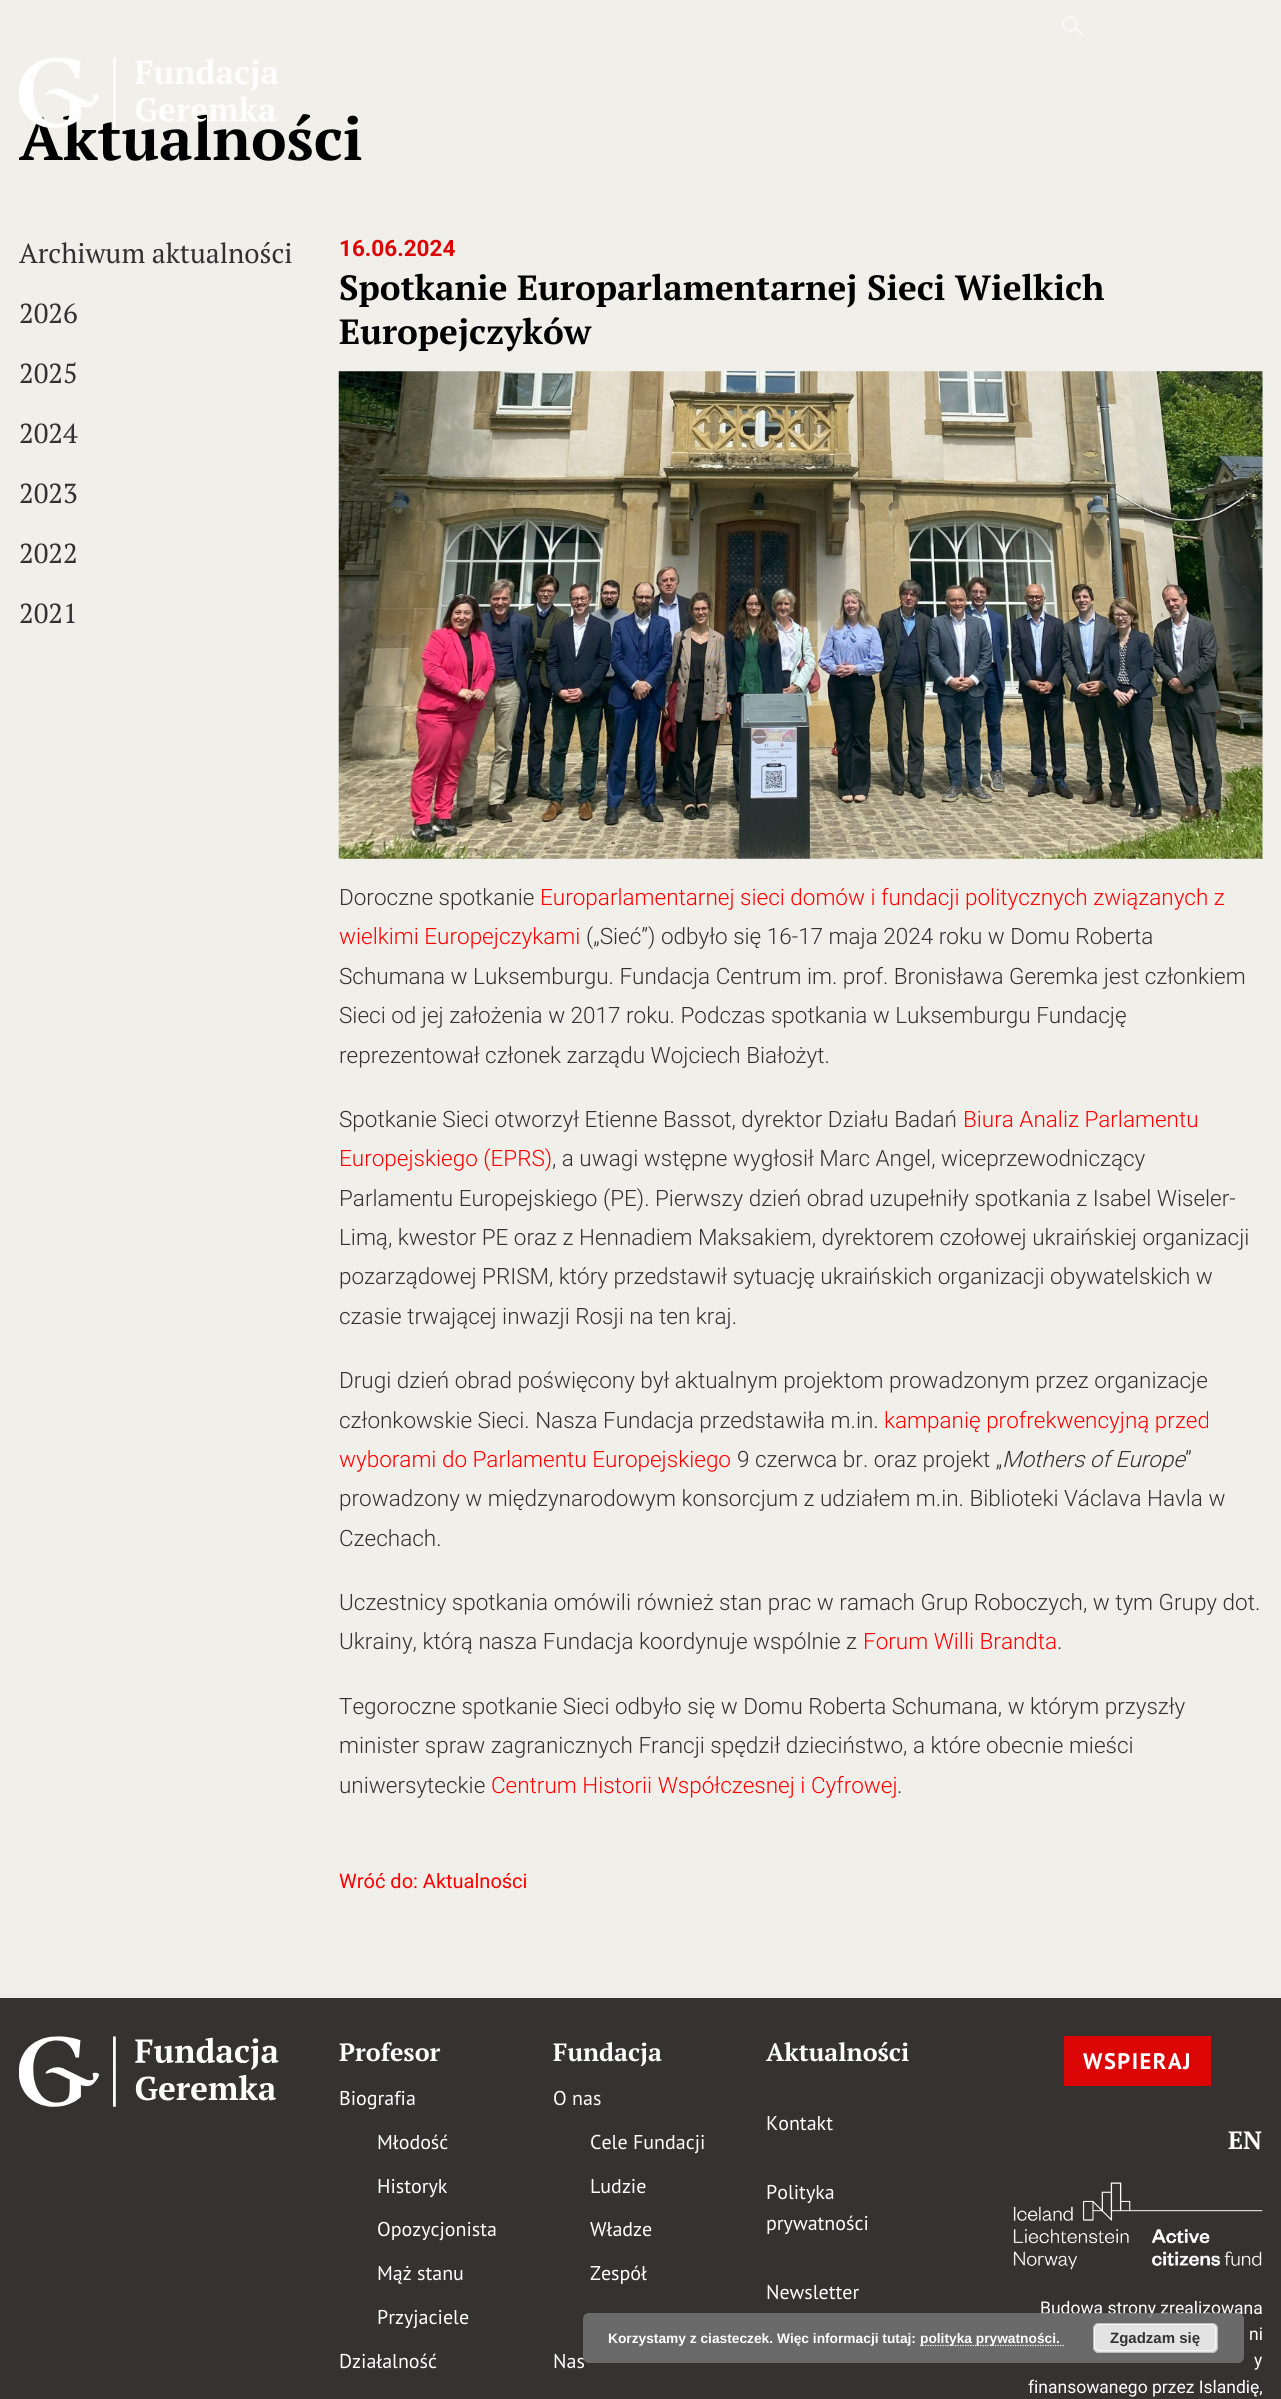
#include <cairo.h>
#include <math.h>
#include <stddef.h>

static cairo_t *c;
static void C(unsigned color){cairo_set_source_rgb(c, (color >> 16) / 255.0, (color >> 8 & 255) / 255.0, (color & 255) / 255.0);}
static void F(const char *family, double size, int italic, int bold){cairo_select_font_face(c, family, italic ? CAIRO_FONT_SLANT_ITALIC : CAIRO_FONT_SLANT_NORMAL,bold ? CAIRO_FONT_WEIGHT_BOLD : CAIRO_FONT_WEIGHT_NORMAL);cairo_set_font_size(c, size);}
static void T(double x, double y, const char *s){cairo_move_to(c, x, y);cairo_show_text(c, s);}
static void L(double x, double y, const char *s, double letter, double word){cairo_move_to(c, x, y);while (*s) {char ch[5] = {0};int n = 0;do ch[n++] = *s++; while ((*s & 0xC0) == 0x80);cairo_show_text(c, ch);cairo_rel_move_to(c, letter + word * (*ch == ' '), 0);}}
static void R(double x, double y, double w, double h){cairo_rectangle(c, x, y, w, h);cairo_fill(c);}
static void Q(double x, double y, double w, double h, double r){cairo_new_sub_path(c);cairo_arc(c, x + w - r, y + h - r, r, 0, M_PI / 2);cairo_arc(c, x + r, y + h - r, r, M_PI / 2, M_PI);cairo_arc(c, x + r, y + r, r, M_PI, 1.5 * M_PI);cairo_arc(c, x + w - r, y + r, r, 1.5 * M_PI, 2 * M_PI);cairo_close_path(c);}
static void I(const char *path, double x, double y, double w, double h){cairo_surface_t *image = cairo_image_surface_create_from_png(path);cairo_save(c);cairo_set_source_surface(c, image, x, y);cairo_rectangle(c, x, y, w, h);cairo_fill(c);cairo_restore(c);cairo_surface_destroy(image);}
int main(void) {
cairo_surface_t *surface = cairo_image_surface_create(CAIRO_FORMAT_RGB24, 1281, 2399);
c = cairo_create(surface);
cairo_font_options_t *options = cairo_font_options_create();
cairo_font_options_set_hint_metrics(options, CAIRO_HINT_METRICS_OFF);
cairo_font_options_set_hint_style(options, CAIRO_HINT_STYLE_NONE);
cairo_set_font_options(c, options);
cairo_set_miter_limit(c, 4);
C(0xf1efea);
cairo_paint(c);
I("1.png",1062,16,21,18);
F("PT Serif",60,0,1);
C(0x000000);
T(19,160,"Aktualności");
I("2.png",19,57,260,71);
F("PT Serif",27.5,0,0);
C(0x333233);
T(19,263,"Archiwum aktualności");
T(19,323,"2026");
T(19,383,"2025");
T(19,443,"2024");
T(19,503,"2023");
T(19,563,"2022");
T(19,623,"2021");
F("Roboto",22.5,0,1);
C(0xdd0606);
T(339,256,"16.06.2024");
F("PT Serif",35,0,1);
C(0x000000);
T(339,300,"Spotkanie Europarlamentarnej Sieci Wielkich");
T(339,344,"Europejczyków");
I("3.png",338,371,925,488);
F("Roboto Light",22.5,0,0);
C(0x333233);
T(339,905,"Doroczne spotkanie");
C(0xff0000);
T(540,905,"Europarlamentarnej sieci domów i fundacji politycznych związanych z");
T(339,944,"wielkimi Europejczykami");
C(0x333233);
T(586,944,"(„Sieć”) odbyło się 16-17 maja 2024 roku w Domu Roberta");
T(339,984,"Schumana w Luksemburgu. Fundacja Centrum im. prof. Bronisława Geremka jest członkiem");
T(339,1023,"Sieci od jej założenia w 2017 roku. Podczas spotkania w Luksemburgu Fundację");
T(339,1063,"reprezentował członek zarządu Wojciech Białożyt.");
T(339,1127,"Spotkanie Sieci otworzył Etienne Bassot, dyrektor Działu Badań");
C(0xff0000);
T(963,1127,"Biura Analiz Parlamentu");
T(339,1166,"Europejskiego (EPRS)");
C(0x333233);
T(552,1166,", a uwagi wstępne wygłosił Marc Angel, wiceprzewodniczący");
T(339,1206,"Parlamentu Europejskiego (PE). Pierwszy dzień obrad uzupełniły spotkania z Isabel Wiseler-");
T(339,1245,"Limą, kwestor PE oraz z Hennadiem Maksakiem, dyrektorem czołowej ukraińskiej organizacji");
T(339,1284,"pozarządowej PRISM, który przedstawił sytuację ukraińskich organizacji obywatelskich w");
T(339,1324,"czasie trwającej inwazji Rosji na ten kraj.");
T(339,1388,"Drugi dzień obrad poświęcony był aktualnym projektom prowadzonym przez organizacje");
T(339,1428,"członkowskie Sieci. Nasza Fundacja przedstawiła m.in.");
C(0xff0000);
T(884,1428,"kampanię profrekwencyjną przed");
T(339,1467,"wyborami do Parlamentu Europejskiego");
C(0x333233);
T(737,1467,"9 czerwca br. oraz projekt „");
F("Roboto Light",22.5,1,0);
T(1002,1467,"Mothers of Europe");
F("Roboto Light",22.5,0,0);
T(1185,1467,"”");
T(339,1506,"prowadzony w międzynarodowym konsorcjum z udziałem m.in. Biblioteki Václava Havla w");
T(339,1546,"Czechach.");
T(339,1610,"Uczestnicy spotkania omówili również stan prac w ramach Grup Roboczych, w tym Grupy dot.");
T(339,1649,"Ukrainy, którą nasza Fundacja koordynuje wspólnie z");
C(0xff0000);
T(863,1649,"Forum Willi Brandta");
C(0x333233);
T(1057,1649,".");
T(339,1714,"Tegoroczne spotkanie Sieci odbyło się w Domu Roberta Schumana, w którym przyszły");
T(339,1753,"minister spraw zagranicznych Francji spędził dzieciństwo, a które obecnie mieści");
T(339,1793,"uniwersyteckie");
C(0xff0000);
T(491,1793,"Centrum Historii Współczesnej i Cyfrowej");
C(0x333233);
T(897,1793,".");
F("Roboto",20,0,0);
C(0xff0000);
T(339,1888,"Wróć do: Aktualności");
C(0x363232);
R(0,1998,1281,401);
I("4.png",19,2036,260,71);
F("PT Serif",25,0,1);
C(0xffffff);
T(339,2061,"Profesor");
F("PT Sans",20,0,0);
T(339,2105,"Biografia");
T(377,2149,"Młodość");
T(377,2193,"Historyk");
T(377,2236,"Opozycjonista");
T(377,2280,"Mąż stanu");
T(377,2324,"Przyjaciele");
T(339,2368,"Działalność");
F("PT Serif",25,0,1);
T(553,2061,"Fundacja");
F("PT Sans",20,0,0);
T(553,2105,"O nas");
T(590,2149,"Cele Fundacji");
T(590,2193,"Ludzie");
T(590,2236,"Władze");
T(590,2280,"Zespół");
T(553,2368,"Nas");
F("PT Serif",25,0,1);
T(766,2061,"Aktualności");
F("PT Sans",20,0,0);
T(766,2130,"Kontakt");
T(766,2199,"Polityka");
T(766,2230,"prywatności");
T(766,2299,"Newsletter");
C(0xdd0606);
R(1064,2036,147,50);
F("PT Sans",22.5,0,1);
C(0xffffff);
L(1083,2069,"WSPIERAJ",1.5,0);
F("PT Serif",25,0,1);
T(1228,2149,"EN");
I("5.png",1013,2182,250,88);
F("Roboto",17.5,0,0);
T(1040,2314,"Budowa strony zrealizowana");
T(1249,2340,"ni");
T(1254,2366,"y");
T(1028,2393,"finansowanego przez Islandię,");
cairo_set_source_rgba(c,0.459,0.459,0.459,0.85);
Q(583,2313,661,50,6);
cairo_fill(c);
F("Liberation Sans",13.75,0,1);
C(0xffffff);
T(608,2343,"Korzystamy z ciasteczek. Więc informacji tutaj:");
cairo_new_path(c);
cairo_move_to(c,920,2345.5);
cairo_line_to(c,1064,2345.5);
cairo_set_line_width(c,1.2);
cairo_set_dash(c,(double[]){1.25,1.25},2,0);
cairo_stroke(c);
T(920,2343,"polityka prywatności.");
C(0xe3e3e3);
Q(1093,2323,125,30,6);
cairo_fill(c);
Q(1094.5,2324.5,121,26,4.5);
C(0xf6f6f6);
cairo_set_line_width(c,1);
cairo_set_dash(c,NULL,0,0);
cairo_stroke(c);
Q(1093.5,2323.5,124,29,5.5);
C(0xbbbbbb);
cairo_stroke(c);
F("Liberation Sans",15,0,1);
C(0x333233);
T(1110,2343,"Zgadzam się");
cairo_surface_write_to_png(surface, "o.png");
cairo_font_options_destroy(options);
cairo_destroy(c);
cairo_surface_destroy(surface);
return 0;
}
